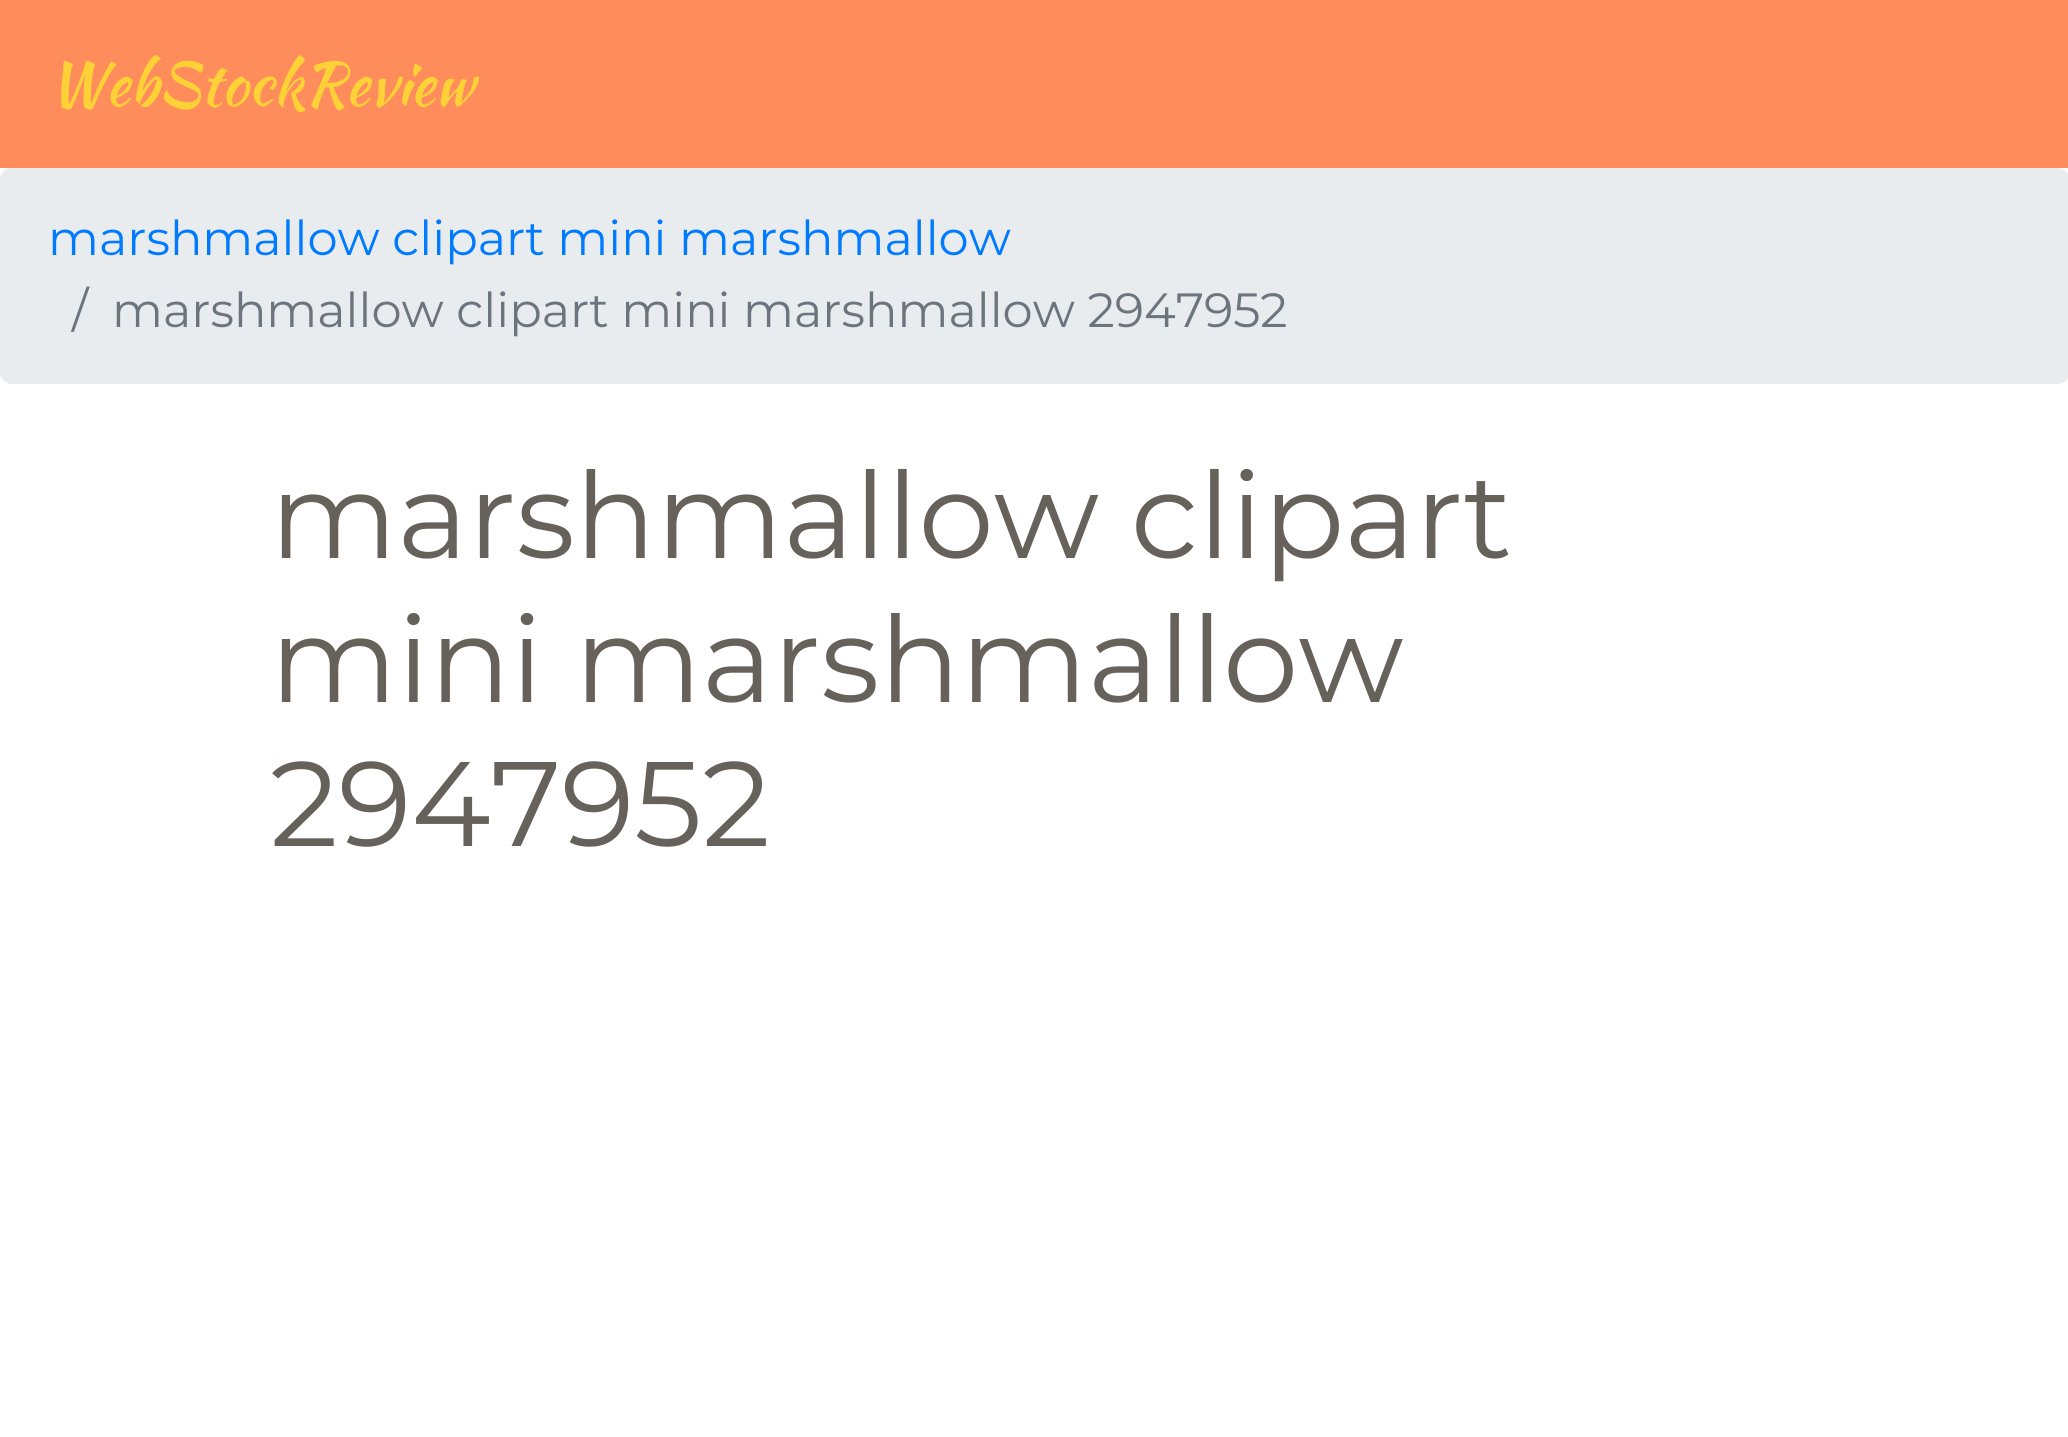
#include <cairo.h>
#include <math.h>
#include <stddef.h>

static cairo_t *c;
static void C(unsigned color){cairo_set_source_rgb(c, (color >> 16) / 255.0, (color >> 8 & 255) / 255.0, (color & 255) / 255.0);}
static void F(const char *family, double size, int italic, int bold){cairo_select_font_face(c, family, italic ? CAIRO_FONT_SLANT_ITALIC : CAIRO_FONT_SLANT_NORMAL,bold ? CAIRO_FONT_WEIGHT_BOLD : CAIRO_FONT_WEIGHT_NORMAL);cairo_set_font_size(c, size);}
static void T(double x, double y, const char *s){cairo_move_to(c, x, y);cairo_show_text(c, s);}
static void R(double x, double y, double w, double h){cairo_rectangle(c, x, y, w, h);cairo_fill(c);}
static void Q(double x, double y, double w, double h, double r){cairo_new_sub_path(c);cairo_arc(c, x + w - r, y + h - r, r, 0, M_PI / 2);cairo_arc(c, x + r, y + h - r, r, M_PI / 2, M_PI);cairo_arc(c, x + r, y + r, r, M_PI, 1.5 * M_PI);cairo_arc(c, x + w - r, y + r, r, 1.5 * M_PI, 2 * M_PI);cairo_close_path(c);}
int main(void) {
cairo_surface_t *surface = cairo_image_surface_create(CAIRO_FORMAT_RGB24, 2068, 1437);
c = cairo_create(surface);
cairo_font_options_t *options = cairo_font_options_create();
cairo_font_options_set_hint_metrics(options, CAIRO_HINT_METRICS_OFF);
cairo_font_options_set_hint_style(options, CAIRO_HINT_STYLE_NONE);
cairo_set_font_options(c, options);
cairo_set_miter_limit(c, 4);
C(0xffffff);
cairo_paint(c);
C(0xff8d5c);
R(0,0,2068,168);
F("Kaushan Script",60,0,0);
C(0xfed136);
T(48,105,"WebStockReview");
C(0xe9ecef);
Q(0,168,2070,216,12);
cairo_fill(c);
F("Montserrat Thin",48,0,0);
C(0x007bff);
T(48,255,"marshmallow clipart mini marshmallow");
C(0x6c757d);
T(72,327,"/");
T(112,327,"marshmallow clipart mini marshmallow 2947952");
F("Montserrat Thin",120,0,0);
C(0x67615b);
T(270,558,"marshmallow clipart");
T(270,702,"mini marshmallow");
T(270,846,"2947952");
cairo_surface_write_to_png(surface, "o.png");
cairo_font_options_destroy(options);
cairo_destroy(c);
cairo_surface_destroy(surface);
return 0;
}
